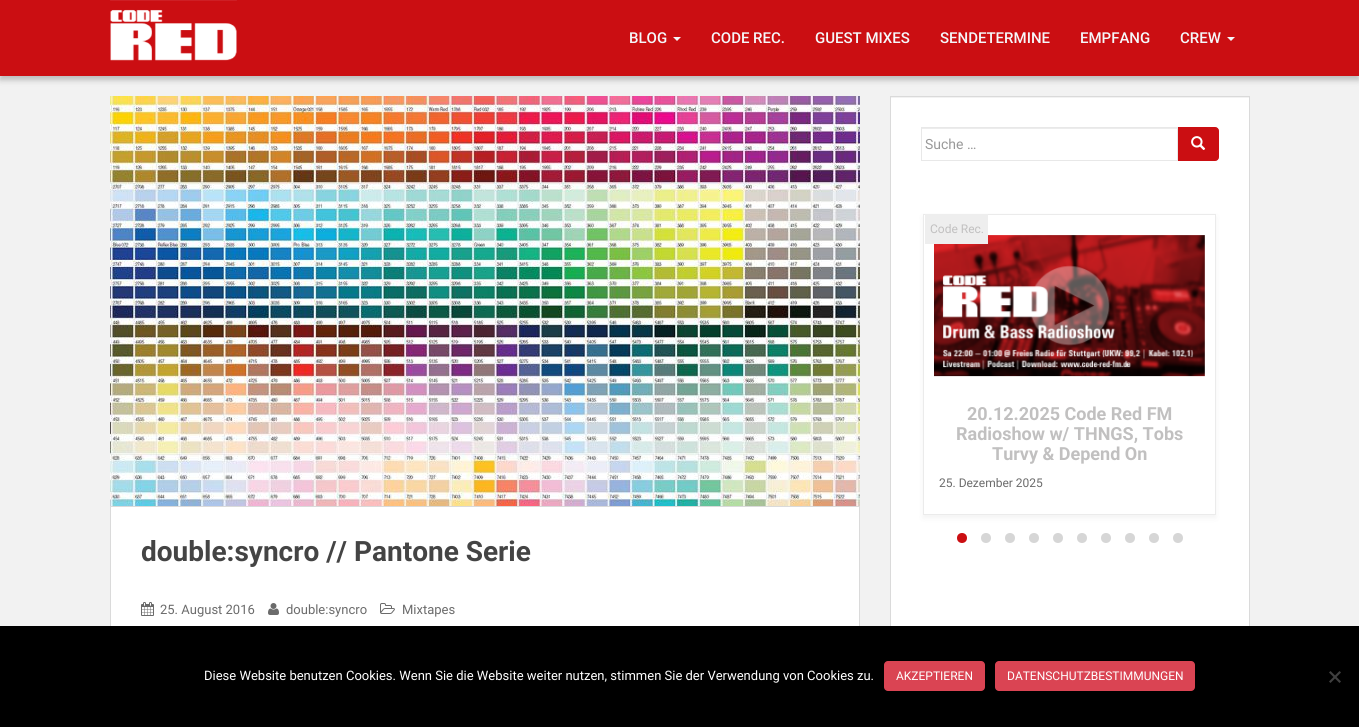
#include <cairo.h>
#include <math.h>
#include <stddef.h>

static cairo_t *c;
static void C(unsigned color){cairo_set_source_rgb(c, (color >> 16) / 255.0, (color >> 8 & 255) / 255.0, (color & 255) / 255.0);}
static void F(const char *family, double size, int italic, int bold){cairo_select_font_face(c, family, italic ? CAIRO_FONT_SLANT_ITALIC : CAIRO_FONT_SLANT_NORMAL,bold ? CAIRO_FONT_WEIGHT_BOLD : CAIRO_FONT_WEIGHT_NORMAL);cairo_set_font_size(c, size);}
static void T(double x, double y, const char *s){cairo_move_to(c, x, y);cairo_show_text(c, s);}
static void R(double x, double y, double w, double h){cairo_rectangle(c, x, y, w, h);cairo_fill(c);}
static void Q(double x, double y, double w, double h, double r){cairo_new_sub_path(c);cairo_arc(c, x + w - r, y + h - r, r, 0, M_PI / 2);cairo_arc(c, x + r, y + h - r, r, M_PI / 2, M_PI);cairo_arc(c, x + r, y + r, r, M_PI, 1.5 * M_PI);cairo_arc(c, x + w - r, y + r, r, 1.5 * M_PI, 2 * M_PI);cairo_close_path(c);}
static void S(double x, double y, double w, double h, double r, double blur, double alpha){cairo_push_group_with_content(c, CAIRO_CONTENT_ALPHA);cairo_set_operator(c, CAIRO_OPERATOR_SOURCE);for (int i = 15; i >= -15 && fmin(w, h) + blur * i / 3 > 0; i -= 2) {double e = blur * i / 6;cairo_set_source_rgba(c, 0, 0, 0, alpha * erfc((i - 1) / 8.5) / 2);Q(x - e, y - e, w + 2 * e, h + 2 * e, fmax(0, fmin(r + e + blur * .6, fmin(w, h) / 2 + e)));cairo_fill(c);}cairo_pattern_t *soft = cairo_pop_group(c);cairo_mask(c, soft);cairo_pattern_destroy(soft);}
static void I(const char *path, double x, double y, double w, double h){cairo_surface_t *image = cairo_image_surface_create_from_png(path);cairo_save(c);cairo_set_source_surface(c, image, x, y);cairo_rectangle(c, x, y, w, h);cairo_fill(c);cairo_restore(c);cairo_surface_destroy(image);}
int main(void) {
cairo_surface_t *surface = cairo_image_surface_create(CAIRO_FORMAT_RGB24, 1359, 727);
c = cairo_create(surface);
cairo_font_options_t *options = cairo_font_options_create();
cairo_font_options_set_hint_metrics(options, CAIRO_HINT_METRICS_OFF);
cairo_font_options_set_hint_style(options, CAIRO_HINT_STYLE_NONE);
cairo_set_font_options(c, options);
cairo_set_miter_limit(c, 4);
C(0xf2f2f2);
cairo_paint(c);
C(0x000000);
S(0,4,1359,76,0,3,.23);
C(0xcb0e12);
R(0,0,1359,76);
I("1.png",110,0,127,61);
F("Roboto Medium",15,0,0);
C(0xf5f7fa);
T(629,43,"BLOG");
cairo_new_path(c);
cairo_move_to(c,673,37);
cairo_line_to(c,681,37);
cairo_line_to(c,677,41);
cairo_close_path(c);
cairo_fill(c);
T(711,43,"CODE REC.");
T(815,43,"GUEST MIXES");
T(940,43,"SENDETERMINE");
T(1080,43,"EMPFANG");
T(1180,43,"CREW");
cairo_new_path(c);
cairo_move_to(c,1227,37);
cairo_line_to(c,1235,37);
cairo_line_to(c,1231,41);
cairo_close_path(c);
cairo_fill(c);
C(0xffffff);
R(891,98,358,528);
cairo_rectangle(c,890.5,96.5,359,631);
C(0xdadada);
cairo_set_line_width(c,1);
cairo_stroke(c);
C(0xececec);
R(922,128,255,1);
cairo_rectangle(c,921.5,127.5,256,33);
C(0xe8e8e8);
cairo_stroke(c);
F("Roboto",14,0,0);
C(0x999999);
T(925,149,"Suche …");
C(0xcb0e12);
cairo_new_path(c);
cairo_move_to(c,1178.5,127.5);
cairo_line_to(c,1215,127.5);
cairo_curve_to(c,1217,127.5,1218.5,129,1218.5,131);
cairo_line_to(c,1218.5,157);
cairo_curve_to(c,1218.5,159,1217,160.5,1215,160.5);
cairo_line_to(c,1178.5,160.5);
cairo_close_path(c);
cairo_fill_preserve(c);
cairo_stroke(c);
I("2.png",1191,136,15,14);
cairo_save(c);
cairo_set_fill_rule(c,CAIRO_FILL_RULE_EVEN_ODD);
cairo_new_path(c);
cairo_move_to(c,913,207);
cairo_line_to(c,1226,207);
cairo_line_to(c,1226,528);
cairo_line_to(c,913,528);
cairo_close_path(c);
cairo_move_to(c,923,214);
cairo_line_to(c,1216,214);
cairo_line_to(c,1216,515);
cairo_line_to(c,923,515);
cairo_close_path(c);
cairo_clip(c);
C(0x000000);
S(923,217,293,301,0,3,.05);
cairo_restore(c);
cairo_rectangle(c,923.5,214.5,292,300);
C(0xebebeb);
cairo_stroke(c);
I("3.png",934,235,271,142);
C(0xeeeeee);
R(925,214,63,30);
F("Roboto",12,0,0);
C(0xc1c0c0);
T(930,233,"Code Rec.");
F("Roboto",18,0,1);
T(967,420,"20.12.2025 Code Red FM");
T(956,440,"Radioshow w/ THNGS, Tobs");
T(992,460,"Turvy & Depend On");
F("Roboto",12,0,0);
C(0x6b6b6b);
T(939,487,"25. Dezember 2025");
C(0xcb0e12);
cairo_new_path(c);
cairo_arc(c,962,538,5,0,2 * M_PI);
cairo_fill(c);
C(0xd6d6d6);
cairo_arc(c,986,538,5,0,2 * M_PI);
cairo_fill(c);
cairo_arc(c,1010,538,5,0,2 * M_PI);
cairo_fill(c);
cairo_arc(c,1034,538,5,0,2 * M_PI);
cairo_fill(c);
cairo_arc(c,1058,538,5,0,2 * M_PI);
cairo_fill(c);
cairo_arc(c,1082,538,5,0,2 * M_PI);
cairo_fill(c);
cairo_arc(c,1106,538,5,0,2 * M_PI);
cairo_fill(c);
cairo_arc(c,1130,538,5,0,2 * M_PI);
cairo_fill(c);
cairo_arc(c,1154,538,5,0,2 * M_PI);
cairo_fill(c);
cairo_arc(c,1178,538,5,0,2 * M_PI);
cairo_fill(c);
I("4.png",110,96,750,410);
C(0xffffff);
R(111,507,748,119);
cairo_rectangle(c,110.5,506.5,749,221);
C(0xdadada);
cairo_stroke(c);
F("Roboto",28,0,1);
C(0x444444);
T(141,561,"double:syncro // Pantone Serie");
I("5.png",141,602,13,14);
F("Roboto",13,0,0);
C(0x6b6b6b);
T(160,614,"25. August 2016");
I("6.png",268,603,11,12);
T(286,614,"double:syncro");
I("7.png",380,603,15,11);
T(402,614,"Mixtapes");
C(0x000000);
R(0,626,1359,101);
C(0xffffff);
T(204,680,"Diese Website benutzen Cookies. Wenn Sie die Website weiter nutzen, stimmen Sie der Verwendung von Cookies zu.");
C(0xda4453);
Q(884,661,101,30,4);
cairo_fill(c);
F("Roboto",12,0,0);
C(0xffffff);
T(896,680,"AKZEPTIEREN");
C(0xda4453);
Q(995,661,200,30,4);
cairo_fill(c);
C(0xffffff);
T(1007,680,"DATENSCHUTZBESTIMMUNGEN");
C(0x404040);
cairo_new_path(c);
cairo_move_to(c,1339.5,671);
cairo_line_to(c,1341,672.5);
cairo_line_to(c,1330.5,683);
cairo_line_to(c,1329,681.5);
cairo_close_path(c);
cairo_fill(c);
cairo_new_path(c);
cairo_move_to(c,1329,672.5);
cairo_line_to(c,1330.5,671);
cairo_line_to(c,1341,681.5);
cairo_line_to(c,1339.5,683);
cairo_close_path(c);
cairo_fill(c);
cairo_surface_write_to_png(surface, "o.png");
cairo_font_options_destroy(options);
cairo_destroy(c);
cairo_surface_destroy(surface);
return 0;
}
